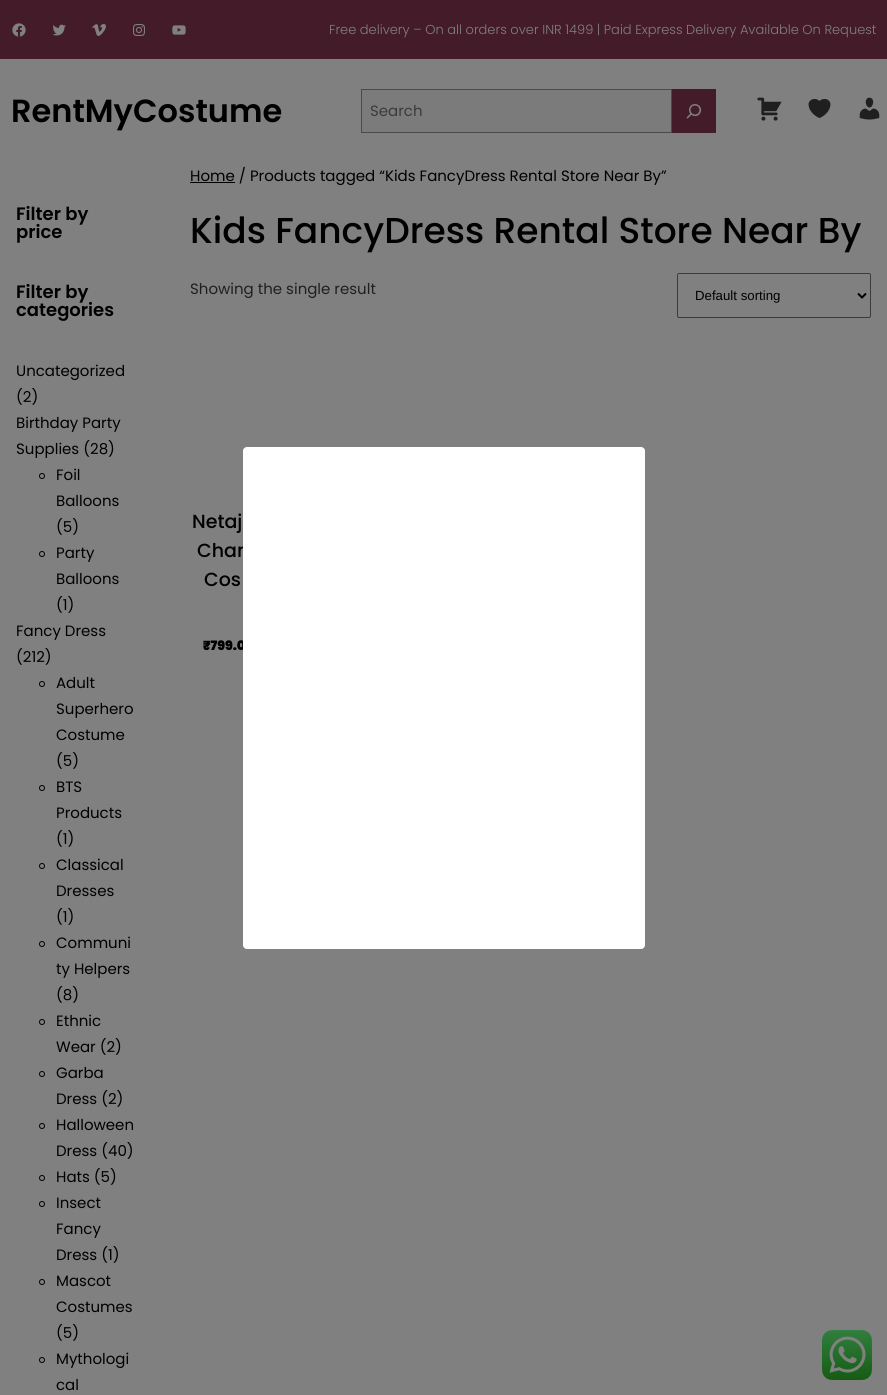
#include <cairo.h>
#include <math.h>
#include <stddef.h>

static cairo_t *c;
static void C(unsigned color){cairo_set_source_rgb(c, (color >> 16) / 255.0, (color >> 8 & 255) / 255.0, (color & 255) / 255.0);}
static void F(const char *family, double size, int italic, int bold){cairo_select_font_face(c, family, italic ? CAIRO_FONT_SLANT_ITALIC : CAIRO_FONT_SLANT_NORMAL,bold ? CAIRO_FONT_WEIGHT_BOLD : CAIRO_FONT_WEIGHT_NORMAL);cairo_set_font_size(c, size);}
static void T(double x, double y, const char *s){cairo_move_to(c, x, y);cairo_show_text(c, s);}
static void R(double x, double y, double w, double h){cairo_rectangle(c, x, y, w, h);cairo_fill(c);}
static void Q(double x, double y, double w, double h, double r){cairo_new_sub_path(c);cairo_arc(c, x + w - r, y + h - r, r, 0, M_PI / 2);cairo_arc(c, x + r, y + h - r, r, M_PI / 2, M_PI);cairo_arc(c, x + r, y + r, r, M_PI, 1.5 * M_PI);cairo_arc(c, x + w - r, y + r, r, 1.5 * M_PI, 2 * M_PI);cairo_close_path(c);}
static void I(const char *path, double x, double y, double w, double h){cairo_surface_t *image = cairo_image_surface_create_from_png(path);cairo_save(c);cairo_set_source_surface(c, image, x, y);cairo_rectangle(c, x, y, w, h);cairo_fill(c);cairo_restore(c);cairo_surface_destroy(image);}
int main(void) {
cairo_surface_t *surface = cairo_image_surface_create(CAIRO_FORMAT_RGB24, 887, 1395);
c = cairo_create(surface);
cairo_font_options_t *options = cairo_font_options_create();
cairo_font_options_set_hint_metrics(options, CAIRO_HINT_METRICS_OFF);
cairo_font_options_set_hint_style(options, CAIRO_HINT_STYLE_NONE);
cairo_set_font_options(c, options);
cairo_set_miter_limit(c, 4);
C(0x808080);
cairo_paint(c);
C(0x441b29);
R(0,0,887,59);
I("1.png",12,23,14,14);
I("2.png",52,24,14,12);
I("3.png",92,24,14,12);
I("4.png",133,24,12,12);
I("5.png",172,25,14,10);
F("Poppins Light",13,0,0);
C(0x808080);
T(329,34,"Free delivery – On all orders over INR 1499 | Paid Express Delivery Available On Request");
F("Poppins SemiBold",32,0,0);
C(0x000000);
T(11,122,"RentMyCostume");
C(0x7b7b7b);
cairo_rectangle(c,361.5,89.5,310,43);
cairo_fill_preserve(c);
C(0x4a4a4a);
cairo_set_line_width(c,1);
cairo_stroke(c);
F("Poppins",15,0,0);
C(0x3b3b3b);
T(370,116,"Search");
C(0x441b29);
R(672,89,44,44);
I("6.png",686,104,16,15);
I("7.png",757,97,25,24);
I("8.png",808,99,23,19);
I("9.png",859,97,21,23);
F("Poppins SemiBold",18,0,0);
C(0x000000);
T(16,220,"Filter by");
T(16,238,"price");
T(16,298,"Filter by");
T(16,316,"categories");
F("Poppins",15,0,0);
T(16,376,"Uncategorized");
T(16,402,"(2)");
T(16,428,"Birthday Party");
T(16,454,"Supplies (28)");
cairo_new_path(c);
cairo_arc(c,42,476,2.5,0,2 * M_PI);
cairo_stroke(c);
T(56,480,"Foil");
T(56,506,"Balloons");
T(56,532,"(5)");
cairo_new_path(c);
cairo_arc(c,42,554,2.5,0,2 * M_PI);
cairo_stroke(c);
T(56,558,"Party");
T(56,584,"Balloons");
T(56,610,"(1)");
T(16,636,"Fancy Dress");
T(16,662,"(212)");
cairo_new_path(c);
cairo_arc(c,42,684,2.5,0,2 * M_PI);
cairo_stroke(c);
T(56,688,"Adult");
T(56,714,"Superhero");
T(56,740,"Costume");
T(56,766,"(5)");
cairo_new_path(c);
cairo_arc(c,42,788,2.5,0,2 * M_PI);
cairo_stroke(c);
T(56,792,"BTS");
T(56,818,"Products");
T(56,844,"(1)");
cairo_new_path(c);
cairo_arc(c,42,866,2.5,0,2 * M_PI);
cairo_stroke(c);
T(56,870,"Classical");
T(56,896,"Dresses");
T(56,922,"(1)");
cairo_new_path(c);
cairo_arc(c,42,944,2.5,0,2 * M_PI);
cairo_stroke(c);
T(56,948,"Communi");
T(56,974,"ty Helpers");
T(56,1000,"(8)");
cairo_new_path(c);
cairo_arc(c,42,1022,2.5,0,2 * M_PI);
cairo_stroke(c);
T(56,1026,"Ethnic");
T(56,1052,"Wear (2)");
cairo_new_path(c);
cairo_arc(c,42,1074,2.5,0,2 * M_PI);
cairo_stroke(c);
T(56,1078,"Garba");
T(56,1104,"Dress (2)");
cairo_new_path(c);
cairo_arc(c,42,1126,2.5,0,2 * M_PI);
cairo_stroke(c);
T(56,1130,"Halloween");
T(56,1156,"Dress (40)");
cairo_new_path(c);
cairo_arc(c,42,1178,2.5,0,2 * M_PI);
cairo_stroke(c);
T(56,1182,"Hats (5)");
cairo_new_path(c);
cairo_arc(c,42,1204,2.5,0,2 * M_PI);
cairo_stroke(c);
T(56,1208,"Insect");
T(56,1234,"Fancy");
T(56,1260,"Dress (1)");
cairo_new_path(c);
cairo_arc(c,42,1282,2.5,0,2 * M_PI);
cairo_stroke(c);
T(56,1286,"Mascot");
T(56,1312,"Costumes");
T(56,1338,"(5)");
cairo_new_path(c);
cairo_arc(c,42,1360,2.5,0,2 * M_PI);
cairo_stroke(c);
T(56,1364,"Mythologi");
T(56,1390,"cal");
R(190,182,45,1);
T(190,181,"Home / Products tagged “Kids FancyDress Rental Store Near By”");
F("Poppins Medium",36,0,0);
T(190,243,"Kids FancyDress Rental Store Near By");
F("Poppins",15,0,0);
C(0x1f1f1f);
T(190,294,"Showing the single result");
Q(677.5,273.5,193,44,1.5);
C(0x3b3b3b);
cairo_stroke(c);
cairo_new_path(c);
cairo_move_to(c,858,293.5);
cairo_line_to(c,862,297.5);
cairo_line_to(c,866,293.5);
C(0x000000);
cairo_set_line_width(c,2);
cairo_stroke(c);
F("Liberation Sans",13.25,0,0);
T(695,300,"Default sorting");
F("Poppins Medium",19,0,0);
T(192,528,"Netaj");
T(197,557,"Chan");
T(204,586,"Cos");
F("Poppins Black",13,0,0);
T(203,650,"₹799.0");
C(0xffffff);
Q(243.5,447.5,401,501,3.5);
cairo_fill_preserve(c);
cairo_set_line_width(c,1);
cairo_stroke(c);
I("10.png",822,1330,50,50);
cairo_surface_write_to_png(surface, "o.png");
cairo_font_options_destroy(options);
cairo_destroy(c);
cairo_surface_destroy(surface);
return 0;
}
